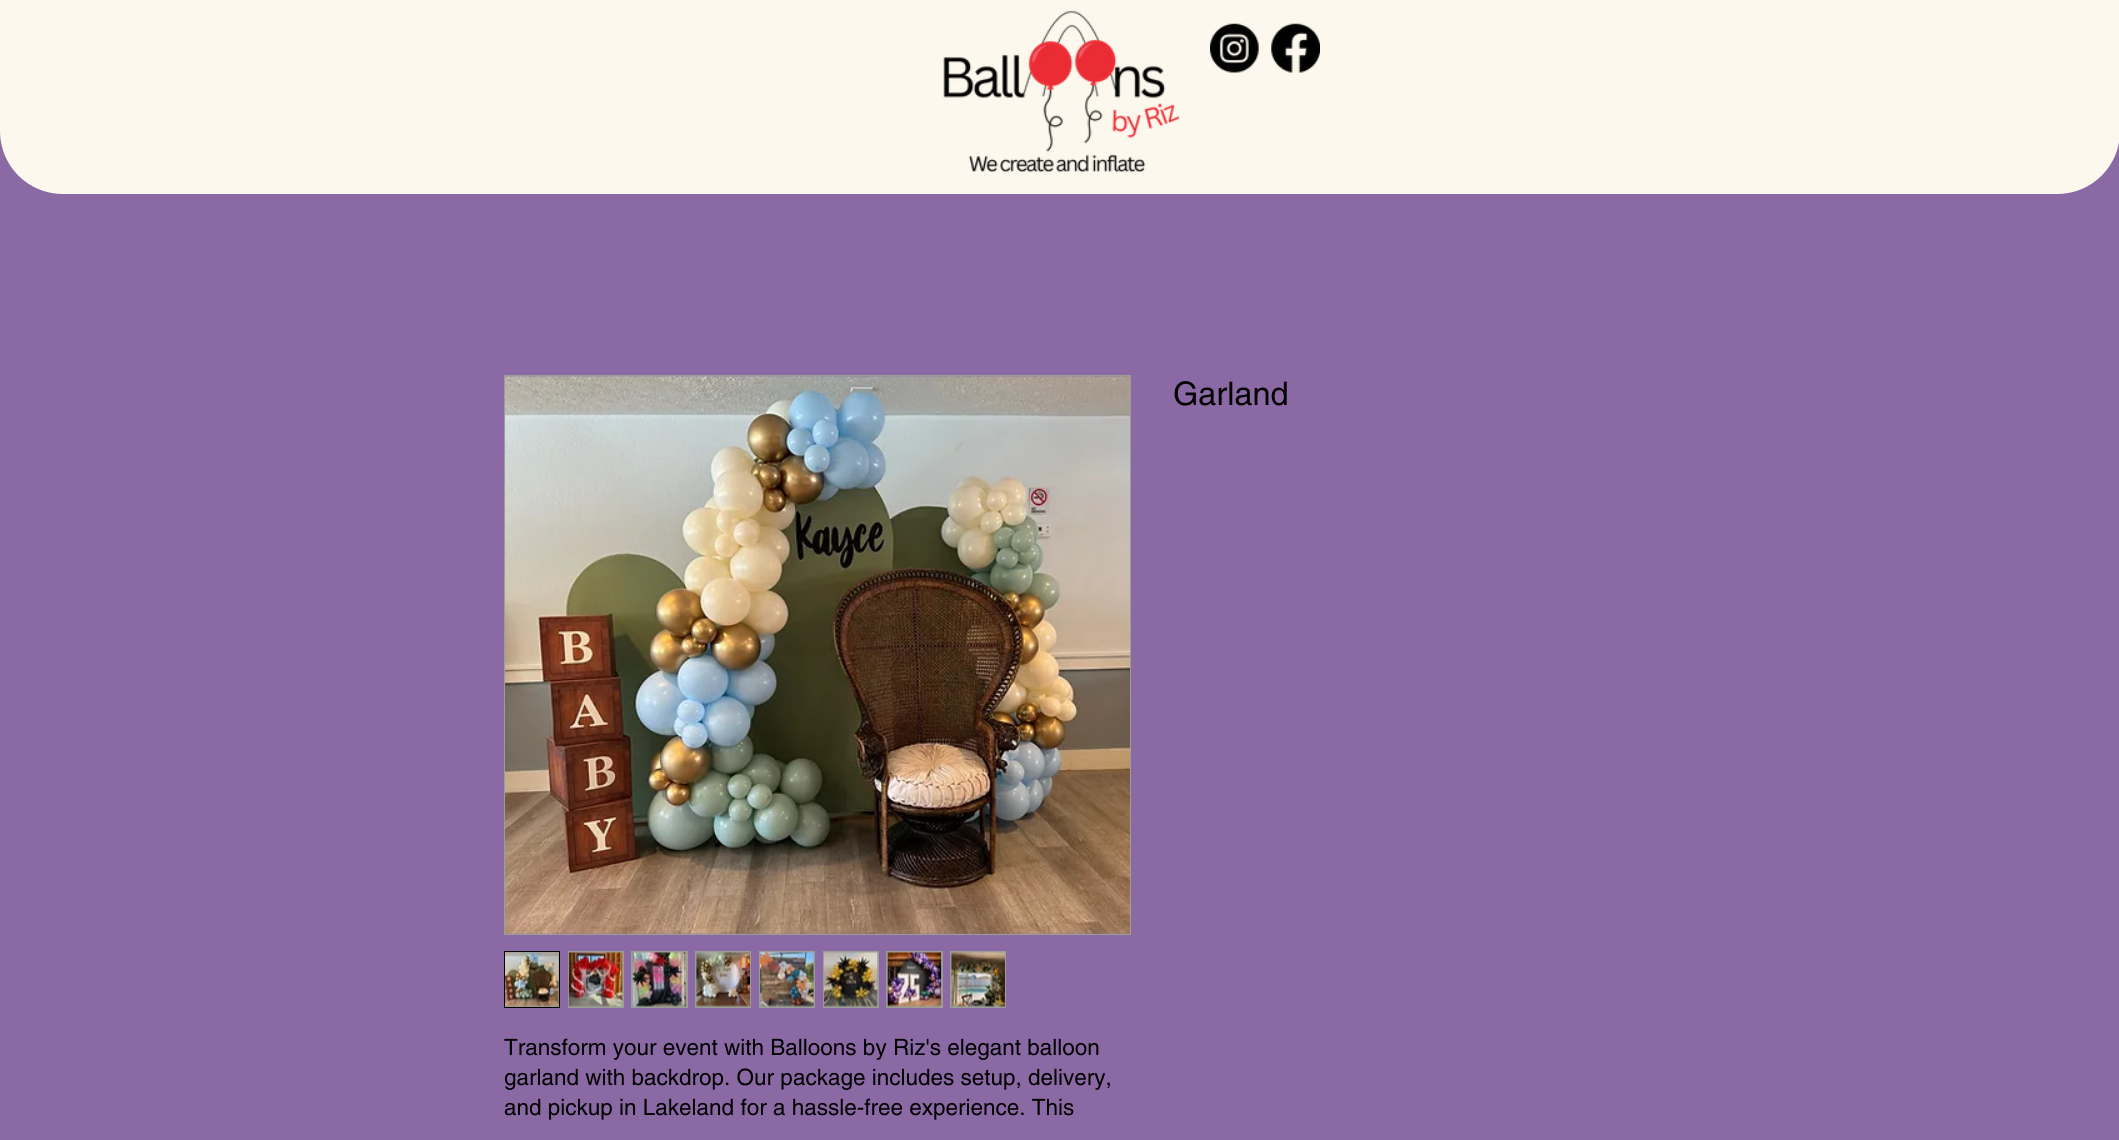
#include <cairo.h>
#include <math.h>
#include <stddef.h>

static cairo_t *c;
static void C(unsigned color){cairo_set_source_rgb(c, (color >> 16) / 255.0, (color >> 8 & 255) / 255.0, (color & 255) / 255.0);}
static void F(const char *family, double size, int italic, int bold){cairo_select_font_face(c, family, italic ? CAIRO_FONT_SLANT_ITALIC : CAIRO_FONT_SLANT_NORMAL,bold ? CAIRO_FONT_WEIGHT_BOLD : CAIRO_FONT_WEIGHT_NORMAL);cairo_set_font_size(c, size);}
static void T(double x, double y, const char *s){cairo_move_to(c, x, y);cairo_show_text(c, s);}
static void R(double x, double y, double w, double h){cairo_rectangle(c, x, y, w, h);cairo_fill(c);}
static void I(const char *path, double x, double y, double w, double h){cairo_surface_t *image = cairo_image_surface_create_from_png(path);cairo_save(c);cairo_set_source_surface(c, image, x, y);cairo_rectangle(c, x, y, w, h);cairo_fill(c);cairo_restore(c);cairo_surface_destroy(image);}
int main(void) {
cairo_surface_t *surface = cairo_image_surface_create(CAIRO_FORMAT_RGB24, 2119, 1140);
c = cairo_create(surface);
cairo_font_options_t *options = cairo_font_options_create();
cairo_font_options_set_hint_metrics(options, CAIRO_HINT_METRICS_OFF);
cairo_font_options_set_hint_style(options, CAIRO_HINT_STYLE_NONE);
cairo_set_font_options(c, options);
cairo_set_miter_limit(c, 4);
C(0x8b69a4);
cairo_paint(c);
C(0xfcf8ed);
cairo_new_path(c);
cairo_move_to(c,0,0);
cairo_line_to(c,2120,0);
cairo_line_to(c,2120,131);
cairo_curve_to(c,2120,166,2092,194,2057,194);
cairo_line_to(c,63,194);
cairo_curve_to(c,28,194,0,166,0,131);
cairo_close_path(c);
cairo_fill(c);
I("1.png",943,10,237,163);
I("2.png",1210,23,49,50);
I("3.png",1271,23,49,50);
F("helvetica",32.5,0,0);
C(0x000000);
T(1173,405,"Garland");
cairo_rectangle(c,504.5,375.5,626,559);
C(0x9a9e96);
cairo_set_line_width(c,1);
cairo_stroke(c);
I("4.png",505,376,625,558);
cairo_rectangle(c,504.5,951.5,55,56);
cairo_fill_preserve(c);
C(0x000000);
cairo_stroke(c);
I("5.png",505,952,54,55);
C(0x9a9e96);
R(568,951,56,57);
I("6.png",568,952,55,55);
R(631,951,57,57);
I("7.png",632,952,55,55);
R(695,951,56,57);
I("8.png",696,952,54,55);
R(759,951,56,57);
I("9.png",760,952,54,55);
R(823,951,56,57);
I("10.png",823,952,55,55);
R(886,951,57,57);
I("11.png",887,952,55,55);
R(950,951,56,57);
I("12.png",951,952,54,55);
F("helvetica",22.5,0,0);
C(0x000000);
T(504,1055,"Transform your event with Balloons by Riz's elegant balloon");
T(504,1085,"garland with backdrop. Our package includes setup, delivery,");
T(504,1115,"and pickup in Lakeland for a hassle-free experience. This");
cairo_surface_write_to_png(surface, "o.png");
cairo_font_options_destroy(options);
cairo_destroy(c);
cairo_surface_destroy(surface);
return 0;
}
